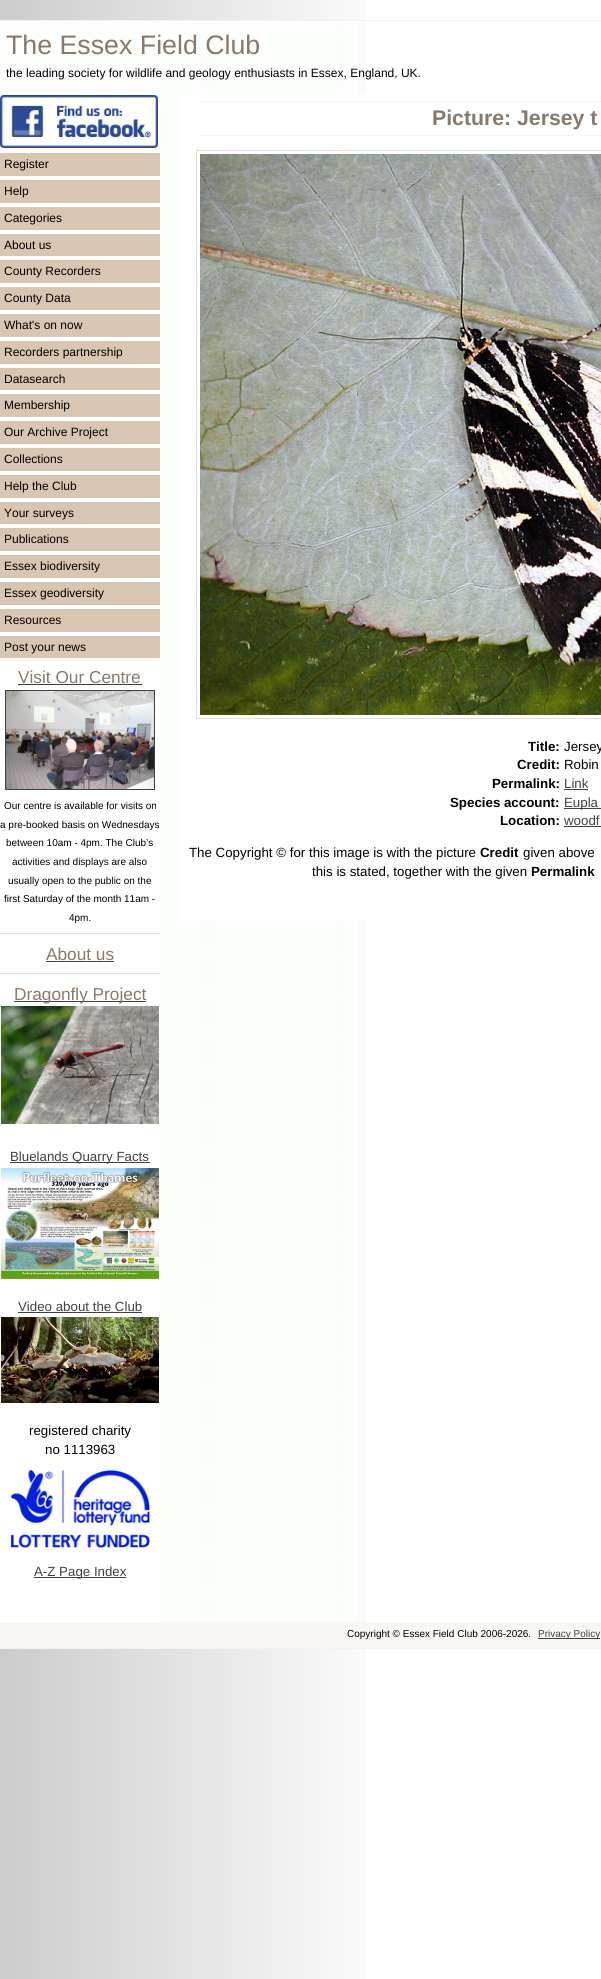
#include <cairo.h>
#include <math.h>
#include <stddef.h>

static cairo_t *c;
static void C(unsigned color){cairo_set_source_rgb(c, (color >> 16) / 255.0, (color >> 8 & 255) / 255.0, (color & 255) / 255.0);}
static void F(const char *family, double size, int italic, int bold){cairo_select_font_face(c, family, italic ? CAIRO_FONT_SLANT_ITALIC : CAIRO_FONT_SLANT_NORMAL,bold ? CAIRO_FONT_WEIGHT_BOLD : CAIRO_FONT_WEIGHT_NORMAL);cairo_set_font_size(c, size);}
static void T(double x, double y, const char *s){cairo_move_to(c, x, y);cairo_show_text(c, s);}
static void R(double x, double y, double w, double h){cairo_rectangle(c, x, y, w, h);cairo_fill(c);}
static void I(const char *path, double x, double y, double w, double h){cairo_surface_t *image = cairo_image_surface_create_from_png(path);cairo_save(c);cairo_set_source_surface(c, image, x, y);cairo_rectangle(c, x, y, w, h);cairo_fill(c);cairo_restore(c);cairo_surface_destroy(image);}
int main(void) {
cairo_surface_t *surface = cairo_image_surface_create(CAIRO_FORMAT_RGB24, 601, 1979);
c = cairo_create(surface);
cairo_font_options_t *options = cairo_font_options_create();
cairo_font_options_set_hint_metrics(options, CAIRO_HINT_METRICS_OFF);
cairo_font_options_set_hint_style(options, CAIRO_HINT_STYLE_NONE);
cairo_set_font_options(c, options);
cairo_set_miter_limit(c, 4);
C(0xffffff);
cairo_paint(c);
I("1.png",0,0,366,1979);
I("2.png",0,21,358,1601);
C(0xf2f2f2);
R(0,20,601,1);
F("Liberation Sans",26.75,0,0);
C(0x8a7968);
T(6,54,"The Essex Field Club");
F("Liberation Sans",12,0,0);
C(0x000000);
T(6,77,"the leading society for wildlife and geology enthusiasts in Essex, England, UK.");
C(0xffffff);
R(0,95,160,1527);
I("3.png",0,95,158,53);
C(0xd8c6b2);
R(0,153,160,23);
C(0x000000);
T(4,168,"Register");
C(0xd8c6b2);
R(0,180,160,23);
C(0x000000);
T(4,195,"Help");
C(0xd8c6b2);
R(0,207,160,23);
C(0x000000);
T(4,222,"Categories");
C(0xd8c6b2);
R(0,234,160,22);
C(0x000000);
T(4,249,"About us");
C(0xd8c6b2);
R(0,260,160,23);
C(0x000000);
T(4,275,"County Recorders");
C(0xd8c6b2);
R(0,287,160,23);
C(0x000000);
T(4,302,"County Data");
C(0xd8c6b2);
R(0,314,160,23);
C(0x000000);
T(4,329,"What's on now");
C(0xd8c6b2);
R(0,341,160,23);
C(0x000000);
T(4,356,"Recorders partnership");
C(0xd8c6b2);
R(0,368,160,22);
C(0x000000);
T(4,383,"Datasearch");
C(0xd8c6b2);
R(0,394,160,23);
C(0x000000);
T(4,409,"Membership");
C(0xd8c6b2);
R(0,421,160,23);
C(0x000000);
T(4,436,"Our Archive Project");
C(0xd8c6b2);
R(0,448,160,23);
C(0x000000);
T(4,463,"Collections");
C(0xd8c6b2);
R(0,475,160,23);
C(0x000000);
T(4,490,"Help the Club");
C(0xd8c6b2);
R(0,502,160,22);
C(0x000000);
T(4,517,"Your surveys");
C(0xd8c6b2);
R(0,528,160,23);
C(0x000000);
T(4,543,"Publications");
C(0xd8c6b2);
R(0,555,160,23);
C(0x000000);
T(4,570,"Essex biodiversity");
C(0xd8c6b2);
R(0,582,160,23);
C(0x000000);
T(4,597,"Essex geodiversity");
C(0xd8c6b2);
R(0,609,160,23);
C(0x000000);
T(4,624,"Resources");
C(0xd8c6b2);
R(0,636,160,22);
C(0x000000);
T(4,651,"Post your news");
F("Liberation Sans",17.25,0,0);
C(0x8a7968);
T(18,683,"Visit Our Centre");
C(0x414141);
R(18,684,124,1);
cairo_rectangle(c,5.5,690.5,149,99);
cairo_set_line_width(c,1);
cairo_stroke(c);
I("4.png",6,691,148,98);
F("Liberation Sans",10,0,0);
C(0x000000);
T(4,809,"Our centre is available for visits on");
T(0,828,"a pre-booked basis on Wednesdays");
T(6,846,"between 10am - 4pm. The Club’s");
T(12,865,"activities and displays are also");
T(8,884,"usually open to the public on the");
T(4,902,"first Saturday of the month 11am -");
T(69,921,"4pm.");
C(0xdfdfdf);
R(0,933,160,1);
F("Liberation Sans",17.25,0,0);
C(0x8a7968);
T(46,960,"About us");
C(0x414141);
R(46,961,68,1);
C(0xdfdfdf);
R(0,973,160,1);
C(0x414141);
R(14,1001,132,1);
C(0x8a7968);
T(14,1000,"Dragonfly Project");
I("5.png",1,1006,158,118);
C(0x414141);
R(10,1162,140,1);
F("Liberation Sans",13.3,0,0);
T(10,1161,"Bluelands Quarry Facts");
I("6.png",1,1168,158,111);
T(18,1311,"Video about the Club");
R(18,1312,124,1);
I("7.png",1,1317,158,86);
C(0x000000);
T(29,1435,"registered charity");
T(45,1454,"no 1113963");
I("8.png",10,1469,140,79);
C(0x414141);
R(34,1577,92,1);
T(34,1576,"A-Z Page Index");
C(0xffffff);
R(180,95,186,825);
cairo_new_path(c);
cairo_move_to(c,200,101.5);
cairo_line_to(c,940,101.5);
C(0xf2ece5);
cairo_set_dash(c,(double[]){1,1},2,0);
cairo_stroke(c);
cairo_new_path(c);
cairo_move_to(c,200,135.5);
cairo_line_to(c,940,135.5);
cairo_stroke(c);
F("Liberation Sans",21.25,0,1);
C(0x8a7968);
T(432,125,"Picture: Jersey t");
cairo_rectangle(c,196.5,150.5,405,568);
C(0xdfdfdf);
cairo_set_dash(c,NULL,0,0);
cairo_stroke(c);
I("9.png",200,154,401,561);
F("Liberation Sans",13.3,0,1);
C(0x000000);
T(528,751,"Title:");
F("Liberation Sans",13.3,0,0);
T(564,751,"Jersey");
F("Liberation Sans",13.3,0,1);
T(517,769,"Credit:");
F("Liberation Sans",13.3,0,0);
T(564,769,"Robin");
F("Liberation Sans",13.3,0,1);
T(492,788,"Permalink:");
F("Liberation Sans",13.3,0,0);
C(0x414141);
T(564,788,"Link");
R(564,789,24,1);
F("Liberation Sans",13.3,0,1);
C(0x000000);
T(450,807,"Species account:");
C(0x414141);
R(564,808,37,1);
F("Liberation Sans",13.3,0,0);
T(564,807,"Eupla");
F("Liberation Sans",13.3,0,1);
C(0x000000);
T(500,825,"Location:");
F("Liberation Sans",13.3,0,0);
C(0x414141);
T(564,825,"woodf");
R(564,826,37,1);
C(0x000000);
T(189,857,"The Copyright © for this image is with the picture");
F("Liberation Sans",13.3,0,1);
T(480,857,"Credit");
F("Liberation Sans",13.3,0,0);
T(523,857,"given above");
T(312,876,"this is stated, together with the given");
F("Liberation Sans",13.3,0,1);
T(531,876,"Permalink");
C(0xf9f7f4);
R(0,1622,601,26);
C(0xf2f2f2);
R(0,1648,601,1);
F("Liberation Sans",10,0,0);
C(0x000000);
T(347,1637,"Copyright © Essex Field Club 2006-2026.");
C(0x414141);
R(538,1638,62,1);
T(538,1637,"Privacy Policy");
cairo_surface_write_to_png(surface, "o.png");
cairo_font_options_destroy(options);
cairo_destroy(c);
cairo_surface_destroy(surface);
return 0;
}
